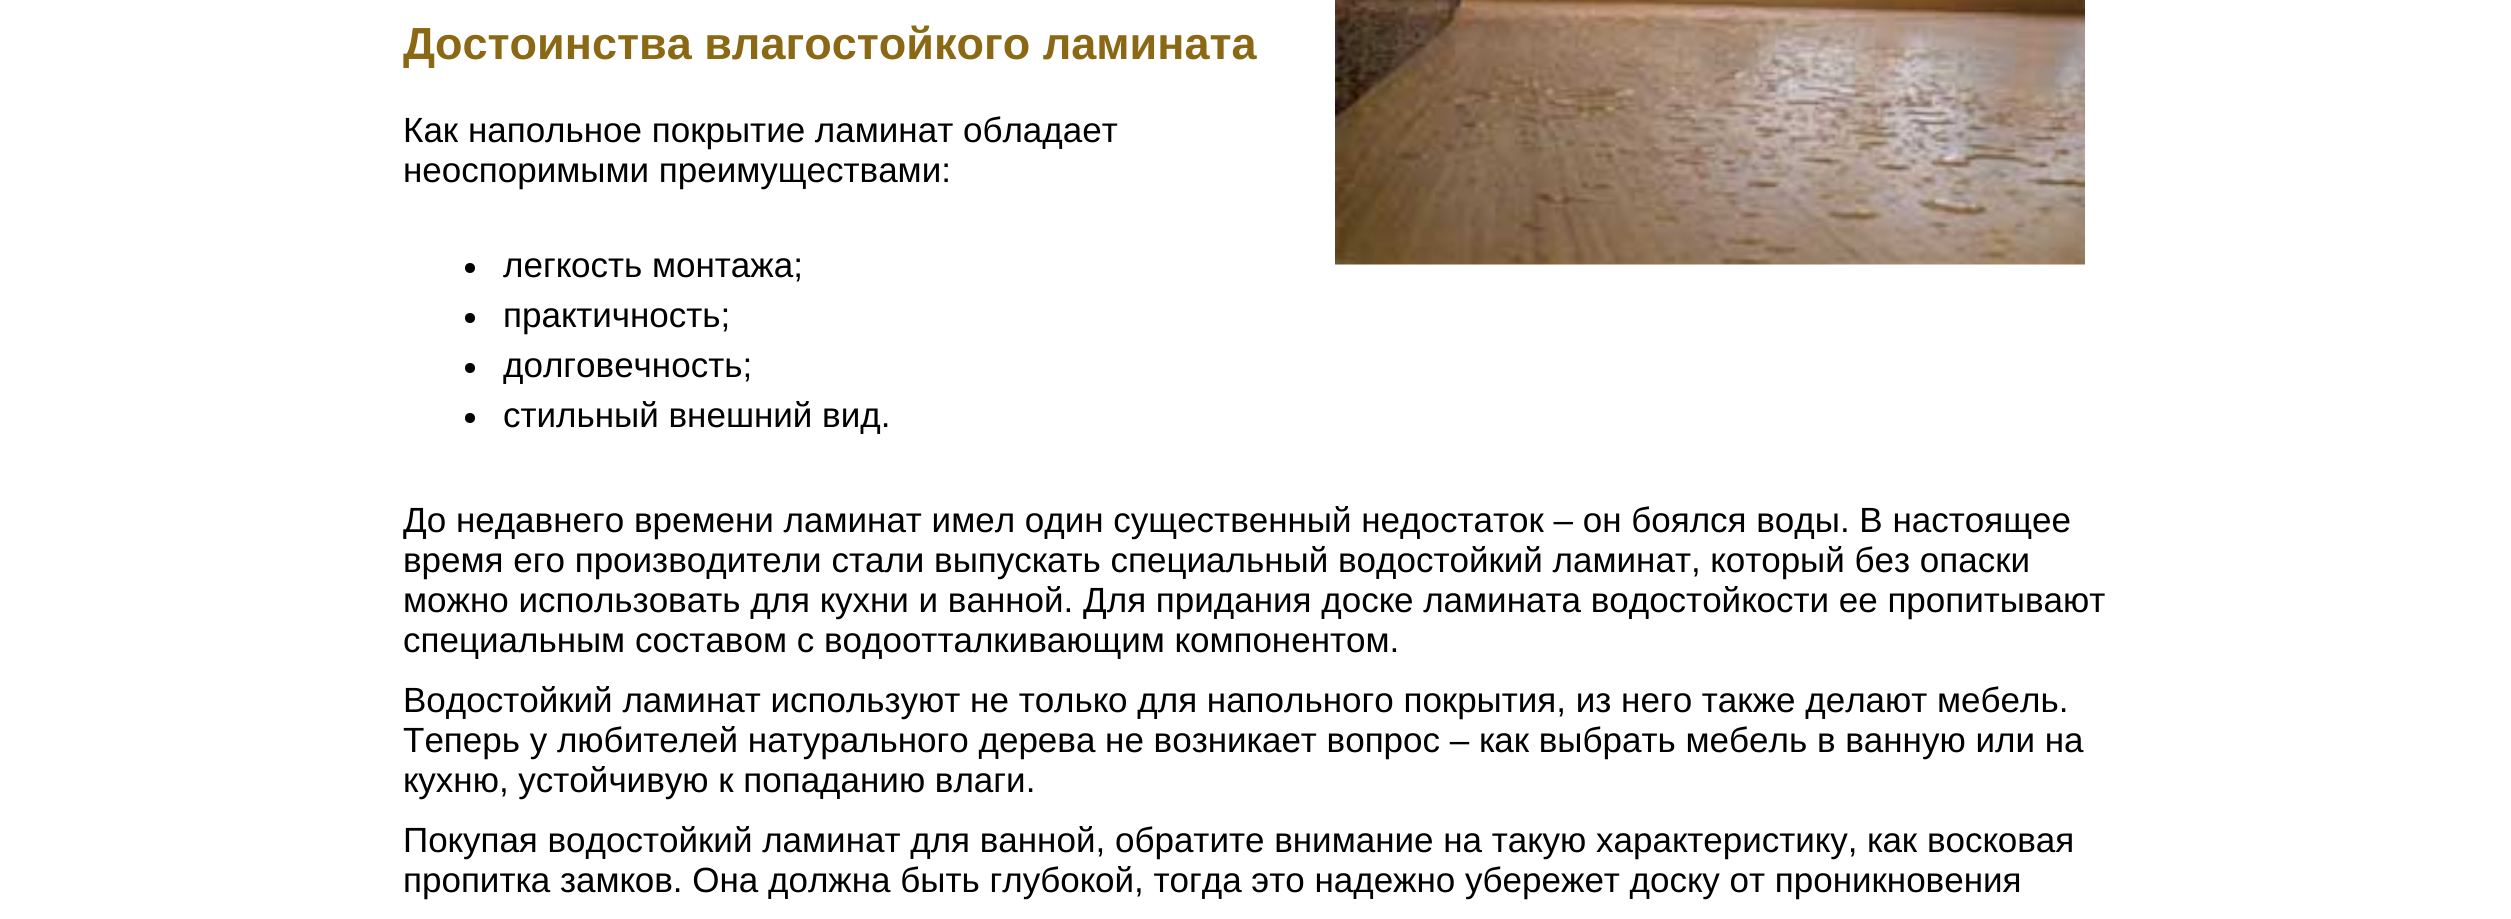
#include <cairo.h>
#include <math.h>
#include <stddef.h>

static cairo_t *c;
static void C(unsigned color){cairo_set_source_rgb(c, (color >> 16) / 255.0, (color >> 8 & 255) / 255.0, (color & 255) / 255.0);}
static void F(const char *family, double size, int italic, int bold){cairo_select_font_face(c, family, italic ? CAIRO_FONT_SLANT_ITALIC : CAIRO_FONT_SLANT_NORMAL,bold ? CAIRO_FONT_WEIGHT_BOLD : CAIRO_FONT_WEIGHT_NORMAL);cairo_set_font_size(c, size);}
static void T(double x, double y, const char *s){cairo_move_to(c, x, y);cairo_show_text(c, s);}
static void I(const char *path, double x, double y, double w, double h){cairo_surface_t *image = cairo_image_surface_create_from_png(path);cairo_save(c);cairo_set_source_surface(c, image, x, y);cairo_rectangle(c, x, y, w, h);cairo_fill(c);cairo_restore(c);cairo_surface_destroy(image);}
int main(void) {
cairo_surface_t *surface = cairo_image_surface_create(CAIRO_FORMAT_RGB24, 2511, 919);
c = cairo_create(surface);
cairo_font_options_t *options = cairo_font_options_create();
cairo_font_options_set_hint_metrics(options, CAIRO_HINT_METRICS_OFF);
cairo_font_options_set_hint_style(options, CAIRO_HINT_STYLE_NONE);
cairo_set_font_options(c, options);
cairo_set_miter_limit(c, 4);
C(0xffffff);
cairo_paint(c);
F("Liberation Sans",45,0,1);
C(0x8b6914);
T(403,59,"Достоинства влагостойкого ламината");
I("1.png",1335,0,750,265);
F("Liberation Sans",35,0,0);
C(0x000000);
T(403,142,"Как напольное покрытие ламинат обладает");
T(403,182,"неоспоримыми преимуществами:");
cairo_new_path(c);
cairo_arc(c,470,268,5,0,2 * M_PI);
cairo_fill(c);
T(503,277,"легкость монтажа;");
cairo_new_path(c);
cairo_arc(c,470,318,5,0,2 * M_PI);
cairo_fill(c);
T(503,327,"практичность;");
cairo_new_path(c);
cairo_arc(c,470,368,5,0,2 * M_PI);
cairo_fill(c);
T(503,377,"долговечность;");
cairo_new_path(c);
cairo_arc(c,470,418,5,0,2 * M_PI);
cairo_fill(c);
T(503,427,"стильный внешний вид.");
T(403,532,"До недавнего времени ламинат имел один существенный недостаток – он боялся воды. В настоящее");
T(403,572,"время его производители стали выпускать специальный водостойкий ламинат, который без опаски");
T(403,612,"можно использовать для кухни и ванной. Для придания доске ламината водостойкости ее пропитывают");
T(403,652,"специальным составом с водоотталкивающим компонентом.");
T(403,712,"Водостойкий ламинат используют не только для напольного покрытия, из него также делают мебель.");
T(403,752,"Теперь у любителей натурального дерева не возникает вопрос – как выбрать мебель в ванную или на");
T(403,792,"кухню, устойчивую к попаданию влаги.");
T(403,852,"Покупая водостойкий ламинат для ванной, обратите внимание на такую характеристику, как восковая");
T(403,892,"пропитка замков. Она должна быть глубокой, тогда это надежно убережет доску от проникновения");
cairo_surface_write_to_png(surface, "o.png");
cairo_font_options_destroy(options);
cairo_destroy(c);
cairo_surface_destroy(surface);
return 0;
}
